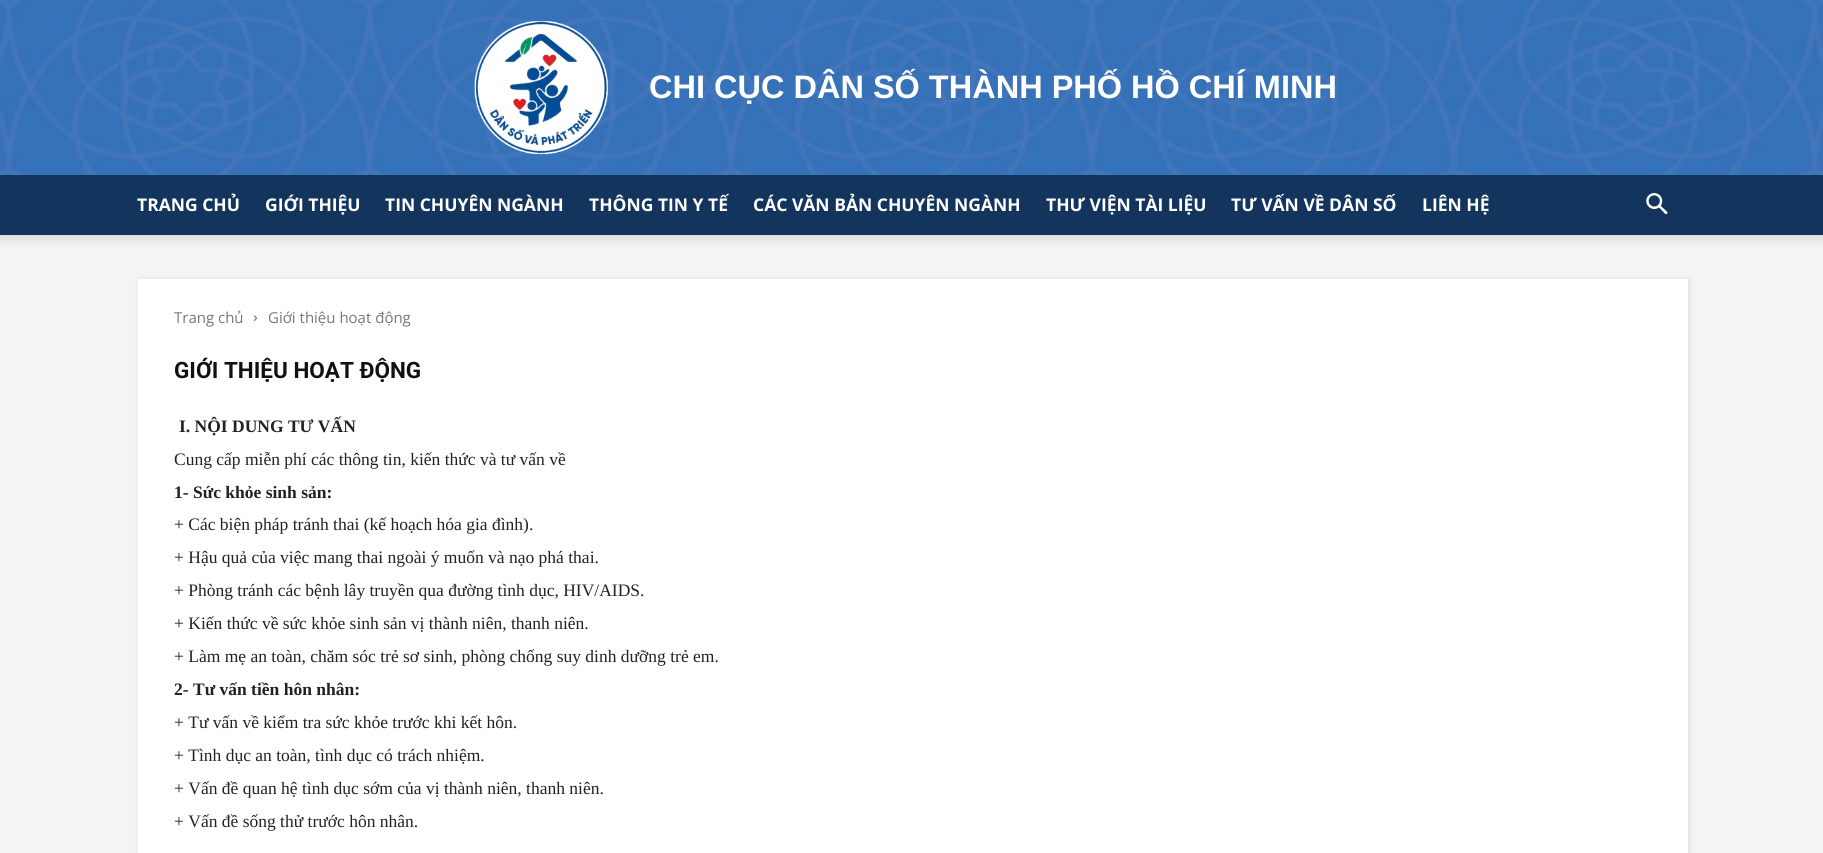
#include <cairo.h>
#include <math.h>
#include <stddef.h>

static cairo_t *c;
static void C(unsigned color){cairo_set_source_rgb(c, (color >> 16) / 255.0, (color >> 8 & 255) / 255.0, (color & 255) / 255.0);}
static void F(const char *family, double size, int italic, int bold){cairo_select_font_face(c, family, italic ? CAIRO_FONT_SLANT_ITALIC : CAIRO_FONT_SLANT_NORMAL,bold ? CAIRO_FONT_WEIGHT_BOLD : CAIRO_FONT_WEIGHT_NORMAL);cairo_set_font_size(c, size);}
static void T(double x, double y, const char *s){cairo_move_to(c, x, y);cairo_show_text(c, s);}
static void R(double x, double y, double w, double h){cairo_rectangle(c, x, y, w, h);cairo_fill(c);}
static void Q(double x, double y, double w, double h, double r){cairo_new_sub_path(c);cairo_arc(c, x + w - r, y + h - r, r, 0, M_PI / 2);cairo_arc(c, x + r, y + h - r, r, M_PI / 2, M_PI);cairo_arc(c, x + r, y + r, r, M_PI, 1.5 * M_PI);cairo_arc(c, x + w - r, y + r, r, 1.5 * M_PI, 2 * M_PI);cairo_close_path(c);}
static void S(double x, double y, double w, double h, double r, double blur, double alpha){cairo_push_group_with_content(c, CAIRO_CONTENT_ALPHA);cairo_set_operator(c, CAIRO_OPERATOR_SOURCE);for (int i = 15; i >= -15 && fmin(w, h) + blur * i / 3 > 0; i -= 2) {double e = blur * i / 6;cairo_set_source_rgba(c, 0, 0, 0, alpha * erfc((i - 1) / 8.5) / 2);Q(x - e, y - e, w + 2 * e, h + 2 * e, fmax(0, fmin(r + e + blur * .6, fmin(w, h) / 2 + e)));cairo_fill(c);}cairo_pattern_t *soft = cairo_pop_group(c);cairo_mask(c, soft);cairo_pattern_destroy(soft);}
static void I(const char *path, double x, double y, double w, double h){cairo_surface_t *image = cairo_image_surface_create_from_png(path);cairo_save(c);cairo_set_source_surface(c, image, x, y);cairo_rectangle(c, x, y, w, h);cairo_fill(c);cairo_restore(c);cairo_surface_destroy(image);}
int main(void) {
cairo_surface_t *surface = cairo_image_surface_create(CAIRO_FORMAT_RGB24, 1823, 853);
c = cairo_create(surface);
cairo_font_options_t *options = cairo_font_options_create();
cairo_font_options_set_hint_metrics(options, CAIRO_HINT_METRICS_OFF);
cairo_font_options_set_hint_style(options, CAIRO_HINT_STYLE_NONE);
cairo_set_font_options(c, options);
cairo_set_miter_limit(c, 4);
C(0xf3f4f6);
cairo_paint(c);
I("1.png",0,0,1823,175);
I("2.png",474,21,134,134);
F("Liberation Sans",32.5,0,1);
C(0xffffff);
T(649,98,"CHI CỤC DÂN SỐ THÀNH PHỐ HỒ CHÍ MINH");
C(0x13345d);
R(0,175,1823,60);
F("Open Sans",17.5,0,1);
C(0xffffff);
T(137,211,"TRANG CHỦ");
T(265,211,"GIỚI THIỆU");
T(385,211,"TIN CHUYÊN NGÀNH");
T(589,211,"THÔNG TIN Y TẾ");
T(753,211,"CÁC VĂN BẢN CHUYÊN NGÀNH");
T(1046,211,"THƯ VIỆN TÀI LIỆU");
T(1231,211,"TƯ VẤN VỀ DÂN SỐ");
T(1422,211,"LIÊN HỆ");
I("3.png",1646,193,22,22);
I("4.png",0,235,1823,11);
C(0x000000);
S(139,280,1550,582,0,3,.1);
C(0xffffff);
R(138,279,1550,574);
F("Open Sans",15,0,0);
C(0x777777);
T(174,323,"Trang chủ");
I("5.png",253,315,5,7);
T(268,323,"Giới thiệu hoạt động");
F("Roboto",22.5,0,1);
C(0x111111);
T(174,378,"GIỚI THIỆU HOẠT ĐỘNG");
F("Liberation Serif",17.5,0,1);
C(0x222222);
T(179,432,"I. NỘI DUNG TƯ VẤN");
F("Liberation Serif",17.5,0,0);
T(174,465,"Cung cấp miễn phí các thông tin, kiến thức và tư vấn về");
F("Liberation Serif",17.5,0,1);
T(174,498,"1- Sức khỏe sinh sản:");
F("Liberation Serif",17.5,0,0);
T(174,530,"+ Các biện pháp tránh thai (kế hoạch hóa gia đình).");
T(174,563,"+ Hậu quả của việc mang thai ngoài ý muốn và nạo phá thai.");
T(174,596,"+ Phòng tránh các bệnh lây truyền qua đường tình dục, HIV/AIDS.");
T(174,629,"+ Kiến thức về sức khỏe sinh sản vị thành niên, thanh niên.");
T(174,662,"+ Làm mẹ an toàn, chăm sóc trẻ sơ sinh, phòng chống suy dinh dưỡng trẻ em.");
F("Liberation Serif",17.5,0,1);
T(174,695,"2- Tư vấn tiền hôn nhân:");
F("Liberation Serif",17.5,0,0);
T(174,728,"+ Tư vấn về kiểm tra sức khỏe trước khi kết hôn.");
T(174,761,"+ Tình dục an toàn, tình dục có trách nhiệm.");
T(174,794,"+ Vấn đề quan hệ tình dục sớm của vị thành niên, thanh niên.");
T(174,827,"+ Vấn đề sống thử trước hôn nhân.");
cairo_surface_write_to_png(surface, "o.png");
cairo_font_options_destroy(options);
cairo_destroy(c);
cairo_surface_destroy(surface);
return 0;
}
